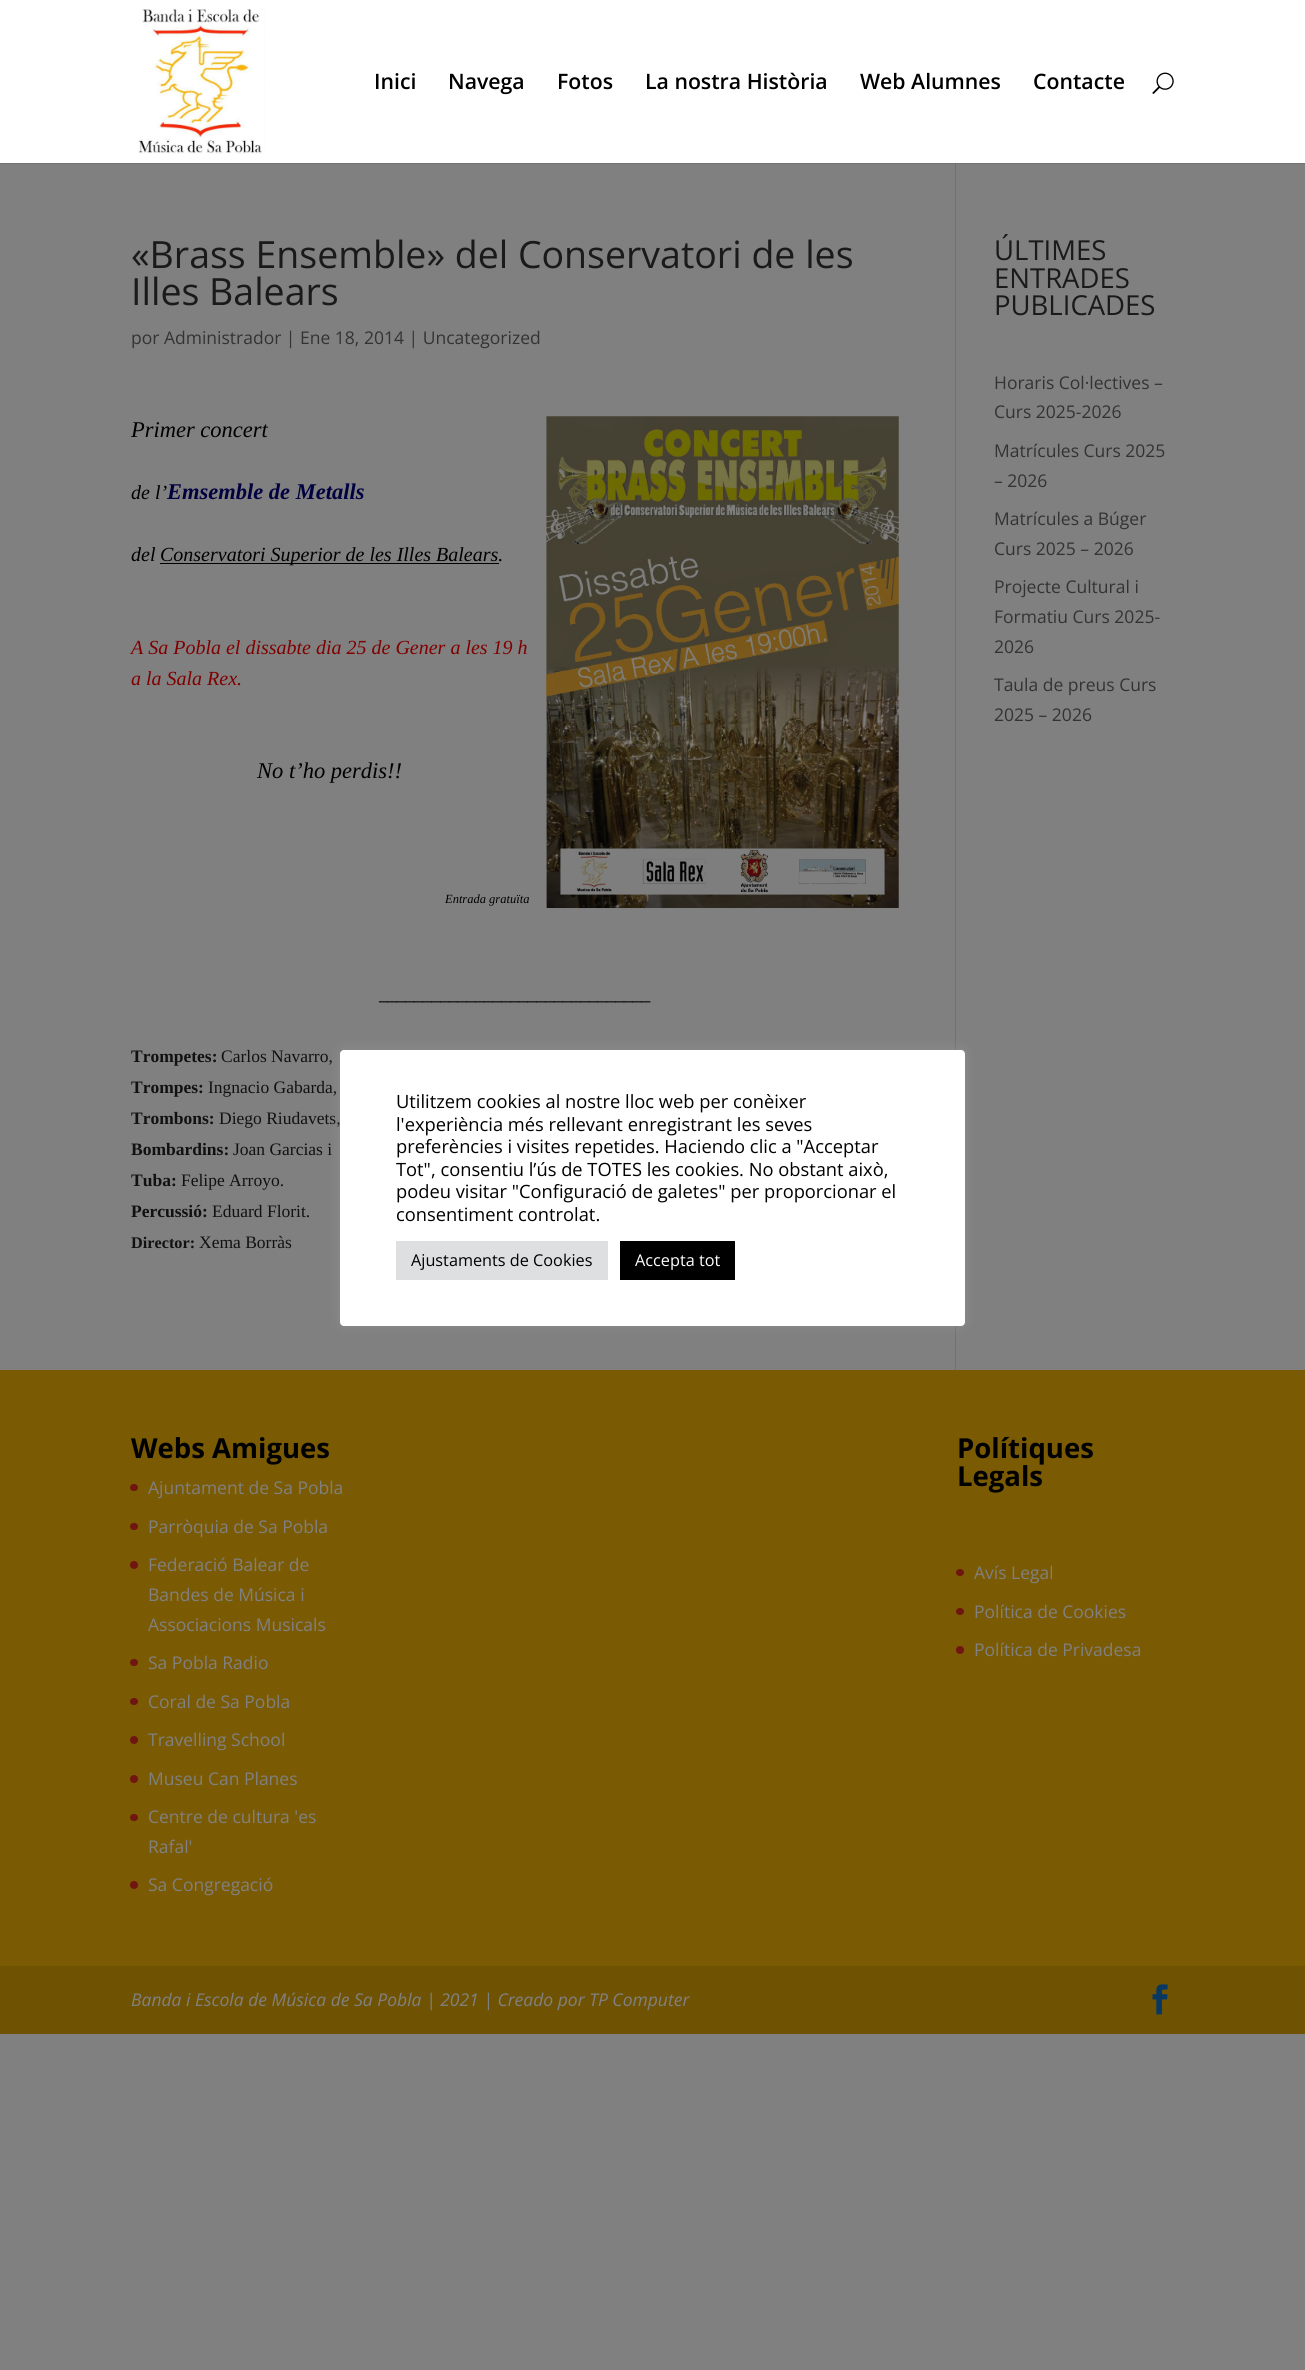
#include <cairo.h>
#include <math.h>
#include <stddef.h>

static cairo_t *c;
static void C(unsigned color){cairo_set_source_rgb(c, (color >> 16) / 255.0, (color >> 8 & 255) / 255.0, (color & 255) / 255.0);}
static void F(const char *family, double size, int italic, int bold){cairo_select_font_face(c, family, italic ? CAIRO_FONT_SLANT_ITALIC : CAIRO_FONT_SLANT_NORMAL,bold ? CAIRO_FONT_WEIGHT_BOLD : CAIRO_FONT_WEIGHT_NORMAL);cairo_set_font_size(c, size);}
static void T(double x, double y, const char *s){cairo_move_to(c, x, y);cairo_show_text(c, s);}
static void R(double x, double y, double w, double h){cairo_rectangle(c, x, y, w, h);cairo_fill(c);}
static void Q(double x, double y, double w, double h, double r){cairo_new_sub_path(c);cairo_arc(c, x + w - r, y + h - r, r, 0, M_PI / 2);cairo_arc(c, x + r, y + h - r, r, M_PI / 2, M_PI);cairo_arc(c, x + r, y + r, r, M_PI, 1.5 * M_PI);cairo_arc(c, x + w - r, y + r, r, 1.5 * M_PI, 2 * M_PI);cairo_close_path(c);}
static void S(double x, double y, double w, double h, double r, double blur, double alpha){cairo_push_group_with_content(c, CAIRO_CONTENT_ALPHA);cairo_set_operator(c, CAIRO_OPERATOR_SOURCE);for (int i = 15; i >= -15 && fmin(w, h) + blur * i / 3 > 0; i -= 2) {double e = blur * i / 6;cairo_set_source_rgba(c, 0, 0, 0, alpha * erfc((i - 1) / 8.5) / 2);Q(x - e, y - e, w + 2 * e, h + 2 * e, fmax(0, fmin(r + e + blur * .6, fmin(w, h) / 2 + e)));cairo_fill(c);}cairo_pattern_t *soft = cairo_pop_group(c);cairo_mask(c, soft);cairo_pattern_destroy(soft);}
static void I(const char *path, double x, double y, double w, double h){cairo_surface_t *image = cairo_image_surface_create_from_png(path);cairo_save(c);cairo_set_source_surface(c, image, x, y);cairo_rectangle(c, x, y, w, h);cairo_fill(c);cairo_restore(c);cairo_surface_destroy(image);}
int main(void) {
cairo_surface_t *surface = cairo_image_surface_create(CAIRO_FORMAT_RGB24, 1305, 2370);
c = cairo_create(surface);
cairo_font_options_t *options = cairo_font_options_create();
cairo_font_options_set_hint_metrics(options, CAIRO_HINT_METRICS_OFF);
cairo_font_options_set_hint_style(options, CAIRO_HINT_STYLE_NONE);
cairo_set_font_options(c, options);
cairo_set_miter_limit(c, 4);
C(0x808080);
cairo_paint(c);
C(0x737373);
R(0,163,1305,1);
C(0xffffff);
R(0,0,1305,163);
I("1.png",138,9,127,145);
F("Open Sans SemiBold",21.25,0,0);
C(0x000000);
T(374,89,"Inici");
T(448,89,"Navega");
T(557,89,"Fotos");
T(645,89,"La nostra Història");
T(860,89,"Web Alumnes");
T(1033,89,"Contacte");
I("2.png",1152,72,22,22);
C(0x717171);
R(955,163,1,1207);
C(0x666666);
R(955,163,1,1);
F("Open Sans",37.5,0,0);
C(0x1a1a1a);
T(131,268,"«Brass Ensemble» del Conservatori de les");
T(131,305,"Illes Balears");
F("Open Sans",17.5,0,0);
C(0x333333);
T(131,344,"por Administrador | Ene 18, 2014 | Uncategorized");
F("Liberation Serif",22.5,1,0);
C(0x000000);
T(131,437,"Primer concert");
I("3.png",546,416,353,493);
F("Liberation Serif",20,1,0);
T(131,499,"de l’");
F("Liberation Serif",22.5,1,1);
C(0x000040);
T(167,499,"Emsemble de Metalls");
F("Liberation Serif",20,1,0);
C(0x000000);
T(131,561,"del");
R(160,563,339,1);
T(160,561,"Conservatori Superior de les Illes Balears.");
C(0x800000);
T(131,654,"A Sa Pobla el dissabte dia 25 de Gener a les 19 h");
T(131,685,"a la Sala Rex.");
F("Liberation Serif",22.5,1,0);
C(0x000000);
T(257,778,"No t’ho perdis!!");
F("Liberation Serif",12.5,1,0);
T(445,903,"Entrada gratuïta");
F("Liberation Serif",17.5,0,1);
C(0x111111);
T(379,1000,"_______________________________");
T(131,1062,"Trompetes:");
F("Liberation Serif",17.5,0,0);
T(221,1062,"Carlos Navarro,");
F("Liberation Serif",17.5,0,1);
T(131,1093,"Trompes:");
F("Liberation Serif",17.5,0,0);
T(208,1093,"Ingnacio Gabarda,");
F("Liberation Serif",17.5,0,1);
T(131,1124,"Trombons:");
F("Liberation Serif",17.5,0,0);
T(219,1124,"Diego Riudavets,");
F("Liberation Serif",17.5,0,1);
T(131,1155,"Bombardins:");
F("Liberation Serif",17.5,0,0);
T(233,1155,"Joan Garcias i");
F("Liberation Serif",17.5,0,1);
T(131,1186,"Tuba:");
F("Liberation Serif",17.5,0,0);
T(181,1186,"Felipe Arroyo.");
F("Liberation Serif",17.5,0,1);
T(131,1217,"Percussió:");
F("Liberation Serif",17.5,0,0);
T(212,1217,"Eduard Florit.");
F("Liberation Serif",16.25,0,1);
T(131,1248,"Director:");
F("Liberation Serif",17.5,0,0);
T(199,1248,"Xema Borràs");
F("Open Sans",27.5,0,0);
C(0x1a1a1a);
T(994,260,"ÚLTIMES");
T(994,288,"ENTRADES");
T(994,315,"PUBLICADES");
F("Open Sans",17.5,0,0);
C(0x333333);
T(994,389,"Horaris Col·lectives –");
T(994,418,"Curs 2025-2026");
T(994,457,"Matrícules Curs 2025");
T(994,487,"– 2026");
T(994,525,"Matrícules a Búger");
T(994,555,"Curs 2025 – 2026");
T(994,593,"Projecte Cultural i");
T(994,623,"Formatiu Curs 2025-");
T(994,653,"2026");
T(994,691,"Taula de preus Curs");
T(994,721,"2025 – 2026");
C(0x7a5a02);
R(0,1370,1305,596);
F("Open Sans",27.5,0,1);
C(0x000000);
T(131,1458,"Webs Amigues");
C(0x701610);
Q(130,1484,8,7,3.5);
cairo_fill(c);
F("Open Sans",17.5,0,0);
C(0x808080);
T(148,1494,"Ajuntament de Sa Pobla");
C(0x701610);
Q(130,1523,8,7,3.5);
cairo_fill(c);
C(0x808080);
T(148,1533,"Parròquia de Sa Pobla");
C(0x701610);
cairo_new_path(c);
cairo_arc(c,134,1565,4,0,2 * M_PI);
cairo_fill(c);
C(0x808080);
T(148,1571,"Federació Balear de");
T(148,1601,"Bandes de Música i");
T(148,1631,"Associacions Musicals");
C(0x701610);
Q(130,1659,8,7,3.5);
cairo_fill(c);
C(0x808080);
T(148,1669,"Sa Pobla Radio");
C(0x701610);
Q(130,1698,8,7,3.5);
cairo_fill(c);
C(0x808080);
T(148,1708,"Coral de Sa Pobla");
C(0x701610);
cairo_new_path(c);
cairo_arc(c,134,1740,4,0,2 * M_PI);
cairo_fill(c);
C(0x808080);
T(148,1746,"Travelling School");
C(0x701610);
cairo_new_path(c);
cairo_arc(c,134,1779,4,0,2 * M_PI);
cairo_fill(c);
C(0x808080);
T(148,1785,"Museu Can Planes");
C(0x701610);
Q(130,1814,8,7,3.5);
cairo_fill(c);
C(0x808080);
T(148,1823,"Centre de cultura 'es");
T(148,1853,"Rafal'");
C(0x701610);
cairo_new_path(c);
cairo_arc(c,134,1885,4,0,2 * M_PI);
cairo_fill(c);
C(0x808080);
T(148,1891,"Sa Congregació");
F("Open Sans",27.5,0,1);
C(0x000000);
T(957,1458,"Polítiques");
T(957,1486,"Legals");
C(0x701610);
Q(956,1569,8,7,3.5);
cairo_fill(c);
F("Open Sans",17.5,0,0);
C(0x808080);
T(974,1579,"Avís Legal");
C(0x701610);
Q(956,1608,8,7,3.5);
cairo_fill(c);
C(0x808080);
T(974,1618,"Política de Cookies");
C(0x701610);
cairo_new_path(c);
cairo_arc(c,960,1650,4,0,2 * M_PI);
cairo_fill(c);
C(0x808080);
T(974,1656,"Política de Privadesa");
C(0x705302);
R(0,1966,1305,68);
F("Open Sans",17.5,1,0);
C(0x808080);
T(131,2006,"Banda i Escola de Música de Sa Pobla | 2021 | Creado por TP Computer");
I("4.png",1152,1984,16,31);
C(0xacabab);
S(340,1049,625,276,4,6,.3);
C(0xffffff);
Q(340,1050,625,276,4);
cairo_fill(c);
F("Open Sans",18.3,0,0);
C(0x000000);
T(396,1108,"Utilitzem cookies al nostre lloc web per conèixer");
T(396,1131,"l'experiència més rellevant enregistrant les seves");
T(396,1153,"preferències i visites repetides. Haciendo clic a \"Acceptar");
T(396,1176,"Tot\", consentiu l’ús de TOTES les cookies. No obstant això,");
T(396,1198,"podeu visitar \"Configuració de galetes\" per proporcionar el");
T(396,1221,"consentiment controlat.");
C(0xdedfe0);
R(396,1241,212,39);
F("Open Sans",16.25,0,0);
C(0x000000);
T(411,1266,"Ajustaments de Cookies");
R(620,1241,115,39);
C(0xffffff);
T(635,1266,"Accepta tot");
cairo_surface_write_to_png(surface, "o.png");
cairo_font_options_destroy(options);
cairo_destroy(c);
cairo_surface_destroy(surface);
return 0;
}
